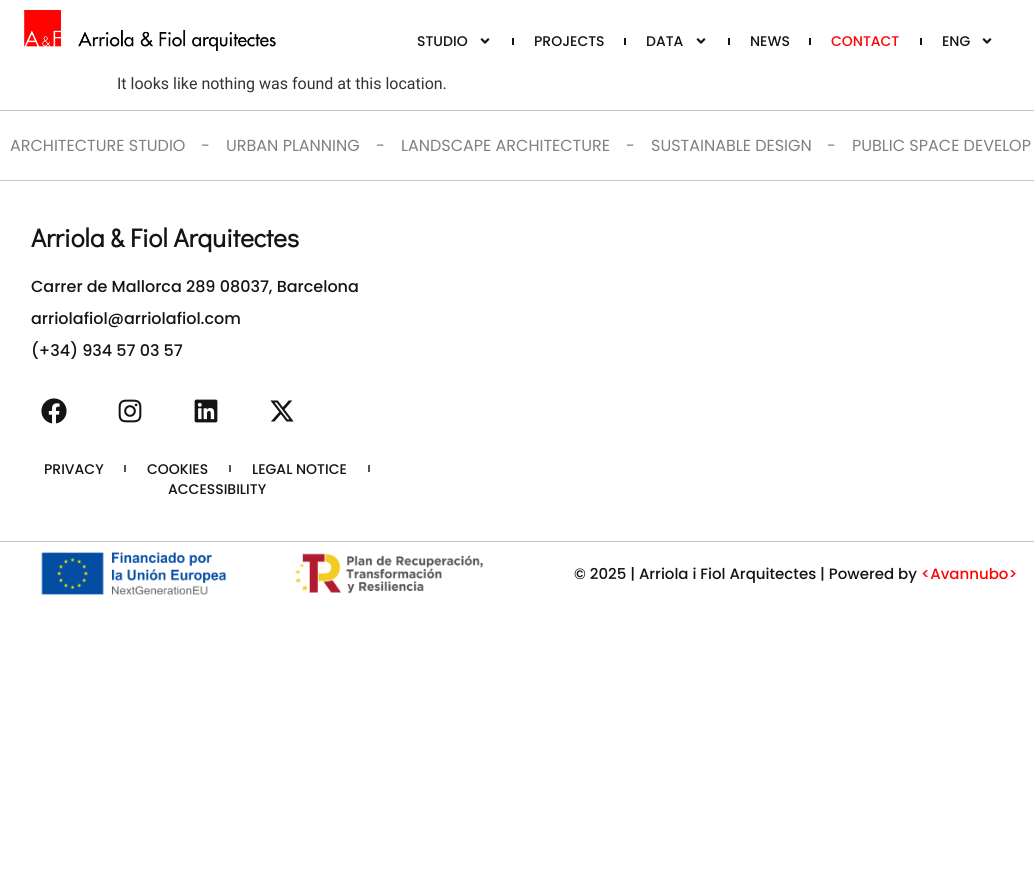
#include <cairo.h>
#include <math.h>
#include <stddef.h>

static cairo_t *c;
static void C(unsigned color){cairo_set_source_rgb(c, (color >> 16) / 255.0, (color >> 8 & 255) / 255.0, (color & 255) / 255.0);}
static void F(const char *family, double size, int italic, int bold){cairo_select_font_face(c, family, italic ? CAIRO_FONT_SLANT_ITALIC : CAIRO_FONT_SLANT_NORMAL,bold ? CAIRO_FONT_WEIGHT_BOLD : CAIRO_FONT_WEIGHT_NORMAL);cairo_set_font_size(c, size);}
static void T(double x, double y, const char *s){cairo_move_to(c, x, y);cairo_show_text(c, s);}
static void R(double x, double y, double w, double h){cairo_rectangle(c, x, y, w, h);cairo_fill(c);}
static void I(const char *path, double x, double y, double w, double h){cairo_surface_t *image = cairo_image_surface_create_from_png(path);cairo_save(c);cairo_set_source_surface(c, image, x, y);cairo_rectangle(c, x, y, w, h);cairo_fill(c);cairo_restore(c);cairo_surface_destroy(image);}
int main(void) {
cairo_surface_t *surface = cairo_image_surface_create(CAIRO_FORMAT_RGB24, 1034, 892);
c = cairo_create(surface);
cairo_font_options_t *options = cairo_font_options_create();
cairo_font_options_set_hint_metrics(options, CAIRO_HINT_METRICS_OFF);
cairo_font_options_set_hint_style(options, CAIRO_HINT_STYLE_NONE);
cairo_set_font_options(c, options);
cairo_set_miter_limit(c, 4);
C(0xffffff);
cairo_paint(c);
I("1.png",24,10,252,41);
F("Poppins Medium",14,0,0);
C(0x141414);
T(417,46,"STUDIO");
I("2.png",480,38,10,6);
R(512,38,2,7);
T(534,46,"PROJECTS");
R(624,38,2,7);
T(646,46,"DATA");
I("2.png",696,38,10,6);
R(728,38,2,7);
T(750,46,"NEWS");
R(809,38,2,7);
C(0xff0303);
T(831,46,"CONTACT");
C(0x141414);
R(920,38,2,7);
T(942,46,"ENG");
I("2.png",982,38,10,6);
F("Roboto",16,0,0);
C(0x333333);
T(117,89,"It looks like nothing was found at this location.");
C(0xc4c4c4);
R(0,110,1034,1);
F("Poppins",16,0,0);
C(0x808080);
T(10,151,"ARCHITECTURE STUDIO");
T(201,151,"-");
T(226,151,"URBAN PLANNING");
T(376,151,"-");
T(401,151,"LANDSCAPE ARCHITECTURE");
T(626,151,"-");
T(651,151,"SUSTAINABLE DESIGN");
T(827,151,"-");
T(852,151,"PUBLIC SPACE DEVELOP");
C(0xc4c4c4);
R(0,180,1034,1);
F("Didact Gothic",26,0,1);
C(0x141414);
T(31,247,"Arriola & Fiol Arquitectes");
F("Poppins Medium",16,0,0);
T(31,292,"Carrer de Mallorca 289 08037, Barcelona");
T(31,324,"arriolafiol@arriolafiol.com");
T(31,356,"(+34) 934 57 03 57");
I("3.png",41,398,26,26);
I("4.png",118,399,24,24);
I("5.png",194,399,24,24);
I("6.png",270,400,24,22);
F("Poppins Medium",14,0,0);
T(44,474,"PRIVACY");
C(0x535353);
R(124,465,2,7);
C(0x141414);
T(147,474,"COOKIES");
C(0x535353);
R(229,465,2,7);
C(0x141414);
T(252,474,"LEGAL NOTICE");
C(0x535353);
R(368,465,2,7);
C(0x141414);
T(168,494,"ACCESSIBILITY");
C(0xc4c4c4);
R(0,541,1034,1);
I("7.png",41,551,186,44);
I("8.png",295,553,188,41);
F("Poppins Medium",15,0,0);
C(0x141414);
T(574,579,"© 2025 | Arriola i Fiol Arquitectes | Powered by");
C(0xff0303);
T(921,579,"<Avannubo>");
cairo_surface_write_to_png(surface, "o.png");
cairo_font_options_destroy(options);
cairo_destroy(c);
cairo_surface_destroy(surface);
return 0;
}
